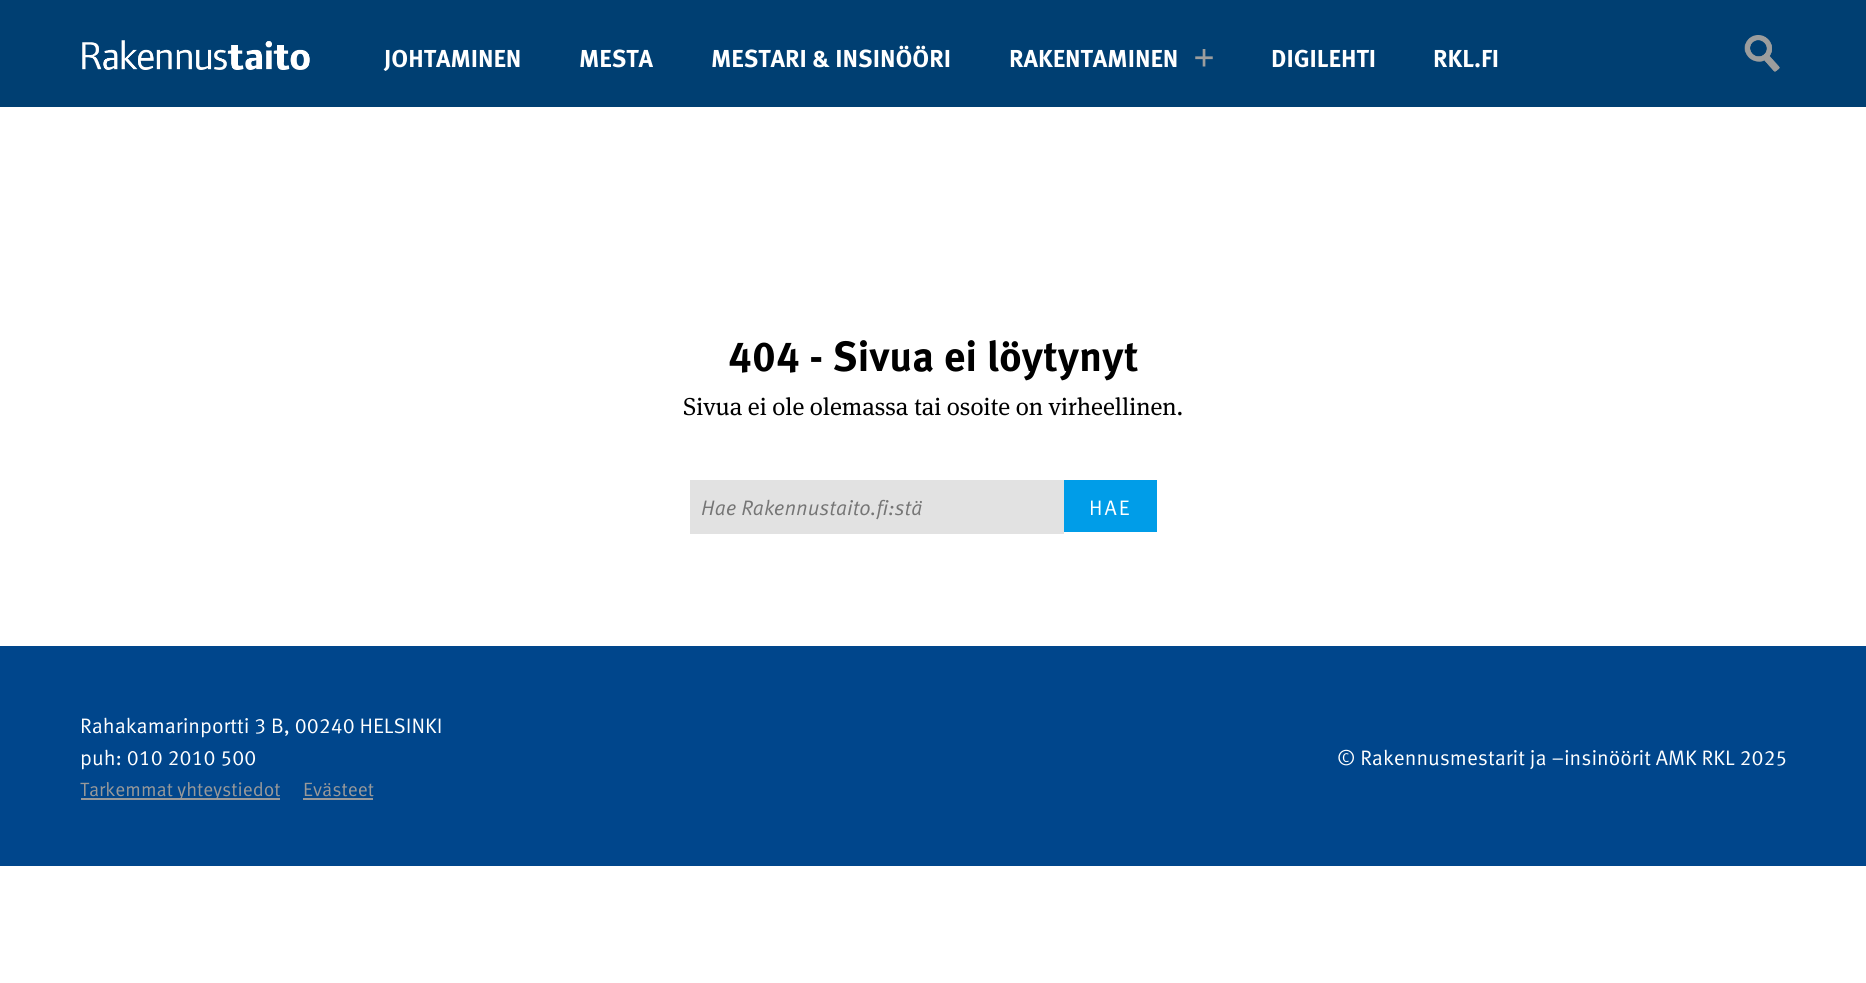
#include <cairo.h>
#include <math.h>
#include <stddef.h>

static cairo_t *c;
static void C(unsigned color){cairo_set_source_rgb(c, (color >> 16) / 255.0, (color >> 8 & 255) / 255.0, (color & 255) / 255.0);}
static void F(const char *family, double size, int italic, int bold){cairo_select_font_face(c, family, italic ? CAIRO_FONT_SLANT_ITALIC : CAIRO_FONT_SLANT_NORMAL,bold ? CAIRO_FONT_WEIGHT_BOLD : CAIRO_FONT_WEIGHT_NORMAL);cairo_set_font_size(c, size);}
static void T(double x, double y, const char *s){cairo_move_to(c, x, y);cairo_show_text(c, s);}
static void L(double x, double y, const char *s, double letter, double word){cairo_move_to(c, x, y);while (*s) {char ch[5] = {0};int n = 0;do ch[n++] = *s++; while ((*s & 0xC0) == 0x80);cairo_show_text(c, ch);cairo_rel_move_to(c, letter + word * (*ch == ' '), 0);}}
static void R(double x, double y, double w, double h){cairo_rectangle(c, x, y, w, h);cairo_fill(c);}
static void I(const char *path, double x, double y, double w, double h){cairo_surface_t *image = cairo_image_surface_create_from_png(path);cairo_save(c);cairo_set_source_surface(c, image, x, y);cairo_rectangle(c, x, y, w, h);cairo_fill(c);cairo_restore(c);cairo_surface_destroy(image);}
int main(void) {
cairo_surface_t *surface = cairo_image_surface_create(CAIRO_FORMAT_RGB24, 1866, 983);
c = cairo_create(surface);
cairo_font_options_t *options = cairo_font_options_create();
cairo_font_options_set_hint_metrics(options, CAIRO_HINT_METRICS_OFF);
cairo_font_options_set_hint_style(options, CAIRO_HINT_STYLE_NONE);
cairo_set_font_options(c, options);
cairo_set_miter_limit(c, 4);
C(0xffffff);
cairo_paint(c);
C(0x003f72);
R(0,0,1866,107);
I("1.png",82,40,228,30);
F("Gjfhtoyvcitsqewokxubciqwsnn",24.5,0,1);
C(0xffffff);
T(384,67,"JOHTAMINEN");
T(579,67,"MESTA");
T(711,67,"MESTARI & INSINÖÖRI");
I("2.png",1195,49,18,18);
T(1009,67,"RAKENTAMINEN");
T(1271,67,"DIGILEHTI");
T(1433,67,"RKL.FI");
I("3.png",1744,35,36,37);
F("Gjfhtoyvcitsqewokxubciqwsnn",42,0,1);
C(0x000000);
T(728,371,"404 - Sivua ei löytynyt");
F("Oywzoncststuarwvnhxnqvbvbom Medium",24.5,0,0);
T(683,415,"Sivua ei ole olemassa tai osoite on virheellinen.");
C(0xe2e2e2);
R(690,480,374,54);
F("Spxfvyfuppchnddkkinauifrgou",21,1,0);
C(0x757575);
T(701,515,"Hae Rakennustaito.fi:stä");
C(0x009de8);
R(1064,480,93,52);
F("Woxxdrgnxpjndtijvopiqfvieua",21,0,0);
C(0xffffff);
L(1089,515,"HAE",2,0);
C(0x00468c);
R(0,646,1866,220);
C(0xffffff);
T(80,733,"Rahakamarinportti 3 B, 00240 HELSINKI");
T(80,765,"puh: 010 2010 500");
C(0x999999);
R(81,798,199,2);
F("Woxxdrgnxpjndtijvopiqfvieua",19.25,0,0);
T(80,796,"Tarkemmat yhteystiedot");
T(303,796,"Evästeet");
R(303,798,70,2);
F("Woxxdrgnxpjndtijvopiqfvieua",21,0,0);
C(0xffffff);
T(1337,765,"© Rakennusmestarit ja –insinöörit AMK RKL 2025");
cairo_surface_write_to_png(surface, "o.png");
cairo_font_options_destroy(options);
cairo_destroy(c);
cairo_surface_destroy(surface);
return 0;
}
